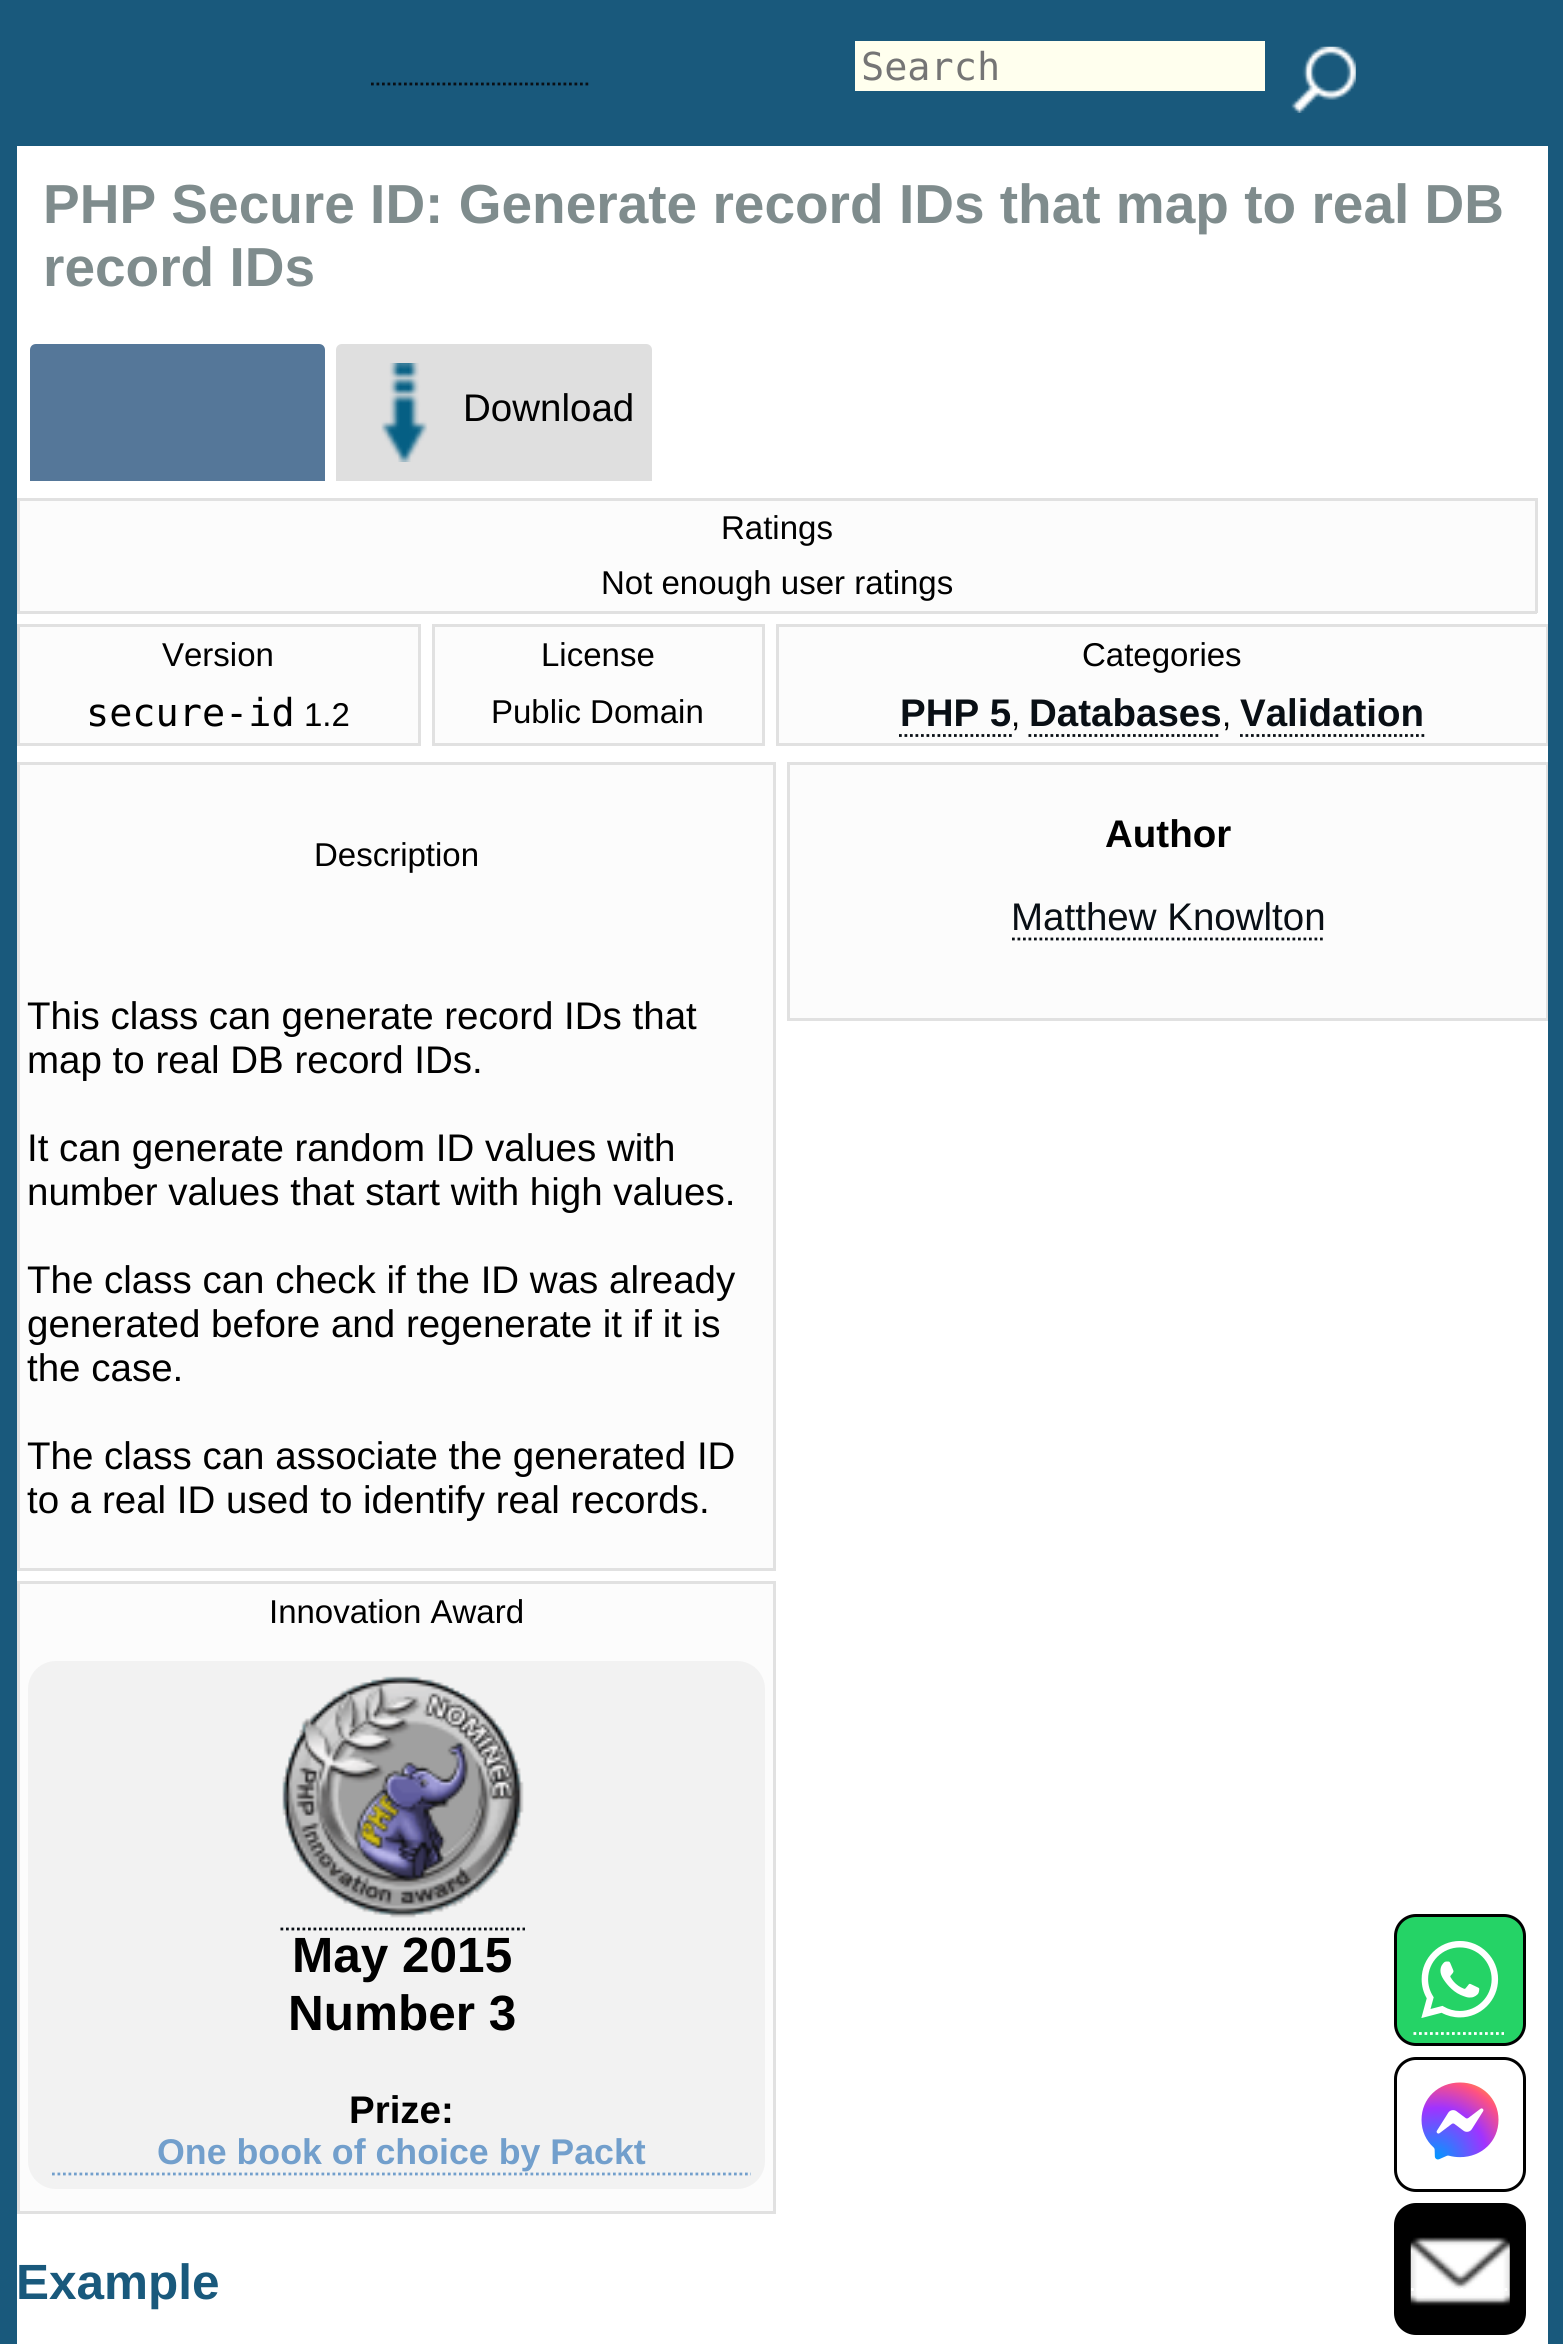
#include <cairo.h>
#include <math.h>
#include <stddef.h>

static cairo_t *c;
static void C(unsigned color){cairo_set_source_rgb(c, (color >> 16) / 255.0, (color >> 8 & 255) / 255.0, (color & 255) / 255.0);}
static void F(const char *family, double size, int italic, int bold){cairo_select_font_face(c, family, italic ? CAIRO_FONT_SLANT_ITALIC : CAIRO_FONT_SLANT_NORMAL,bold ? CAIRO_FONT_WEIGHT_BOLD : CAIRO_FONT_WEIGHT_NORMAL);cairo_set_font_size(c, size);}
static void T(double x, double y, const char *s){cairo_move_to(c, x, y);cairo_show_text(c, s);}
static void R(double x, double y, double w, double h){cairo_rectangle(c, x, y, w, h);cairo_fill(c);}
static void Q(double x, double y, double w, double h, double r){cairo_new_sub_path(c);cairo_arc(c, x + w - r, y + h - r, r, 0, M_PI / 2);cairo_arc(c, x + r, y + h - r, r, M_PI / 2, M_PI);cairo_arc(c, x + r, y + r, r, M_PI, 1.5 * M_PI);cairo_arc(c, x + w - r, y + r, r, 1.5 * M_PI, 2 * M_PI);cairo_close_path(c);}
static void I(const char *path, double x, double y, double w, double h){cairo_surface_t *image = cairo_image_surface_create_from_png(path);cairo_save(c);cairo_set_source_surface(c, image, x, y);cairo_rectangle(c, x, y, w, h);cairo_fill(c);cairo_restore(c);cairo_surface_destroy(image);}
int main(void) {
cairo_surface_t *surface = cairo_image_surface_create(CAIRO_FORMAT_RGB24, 1563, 2344);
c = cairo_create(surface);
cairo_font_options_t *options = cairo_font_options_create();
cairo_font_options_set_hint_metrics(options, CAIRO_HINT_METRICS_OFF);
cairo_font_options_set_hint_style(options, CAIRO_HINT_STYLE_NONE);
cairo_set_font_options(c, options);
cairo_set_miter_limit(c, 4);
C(0x19597c);
cairo_paint(c);
C(0xffffff);
R(17,146,1531,2198);
C(0xffffee);
R(855,41,410,50);
F("DejaVu Sans Mono",38.5,0,0);
C(0x757575);
T(861,80,"Search");
I("1.png",1291,46,65,67);
cairo_new_path(c);
cairo_move_to(c,371,84);
cairo_line_to(c,588.5,84);
C(0x090f15);
cairo_set_line_width(c,2.8);
cairo_set_dash(c,(double[]){2.75,2.75},2,0);
cairo_stroke(c);
F("Liberation Sans",55,0,1);
C(0x7f8c8d);
T(43,223,"PHP Secure ID: Generate record IDs that map to real DB");
T(43,286,"record IDs");
C(0x557799);
cairo_new_path(c);
cairo_move_to(c,36,344);
cairo_line_to(c,319,344);
cairo_curve_to(c,322.5,344,325,346.5,325,350);
cairo_line_to(c,325,481);
cairo_line_to(c,30,481);
cairo_line_to(c,30,350);
cairo_curve_to(c,30,346.5,32.5,344,36,344);
cairo_close_path(c);
cairo_fill(c);
C(0xdfdfdf);
cairo_new_path(c);
cairo_move_to(c,342,344);
cairo_line_to(c,646,344);
cairo_curve_to(c,649.5,344,652,346.5,652,350);
cairo_line_to(c,652,481);
cairo_line_to(c,336,481);
cairo_line_to(c,336,350);
cairo_curve_to(c,336,346.5,338.5,344,342,344);
cairo_close_path(c);
cairo_fill(c);
I("2.png",381,363,47,99);
F("Liberation Sans",38.5,0,0);
C(0x000000);
T(463,421,"Download");
C(0xfcfcfc);
R(20,501,1515,110);
C(0xe1e1e1);
R(17,498,1520,3);
R(1535,498,3,115);
R(17,498,3,58);
F("Liberation Sans",33,0,0);
C(0x000000);
T(721,539,"Ratings");
C(0xe1e1e1);
R(17,611,1520,3);
R(17,556,3,57);
C(0x000000);
T(601,594,"Not enough user ratings");
C(0xfcfcfc);
R(20,627,398,116);
C(0xe1e1e1);
R(17,624,404,3);
R(418,624,3,121);
R(17,624,3,58);
C(0x000000);
T(162,666,"Version");
C(0xfcfcfc);
R(435,627,327,116);
C(0xe1e1e1);
R(432,624,333,3);
R(762,624,3,121);
R(432,624,3,58);
C(0x000000);
T(541,666,"License");
C(0xfcfcfc);
R(779,627,767,116);
C(0xe1e1e1);
R(776,624,772,3);
R(1546,624,2,121);
R(776,624,3,58);
C(0x000000);
T(1082,666,"Categories");
C(0xe1e1e1);
R(17,743,404,3);
R(17,682,3,63);
F("DejaVu Sans Mono",38.5,0,0);
C(0x000000);
T(86,726,"secure-id");
F("Liberation Sans",33,0,0);
T(304,726,"1.2");
C(0xe1e1e1);
R(432,743,333,3);
R(432,682,3,63);
C(0x000000);
T(491,723,"Public Domain");
C(0xe1e1e1);
R(776,743,772,3);
R(776,682,3,63);
F("Liberation Sans",38.5,0,1);
C(0x090f15);
T(900,726,"PHP 5");
cairo_new_path(c);
cairo_move_to(c,899,735.5);
cairo_line_to(c,1012,735.5);
cairo_stroke(c);
F("Liberation Sans",33,0,0);
C(0x000000);
T(1011,726,",");
F("Liberation Sans",38.5,0,1);
C(0x090f15);
T(1029,726,"Databases");
cairo_new_path(c);
cairo_move_to(c,1028.5,735.5);
cairo_line_to(c,1221,735.5);
cairo_stroke(c);
F("Liberation Sans",33,0,0);
C(0x000000);
T(1222,726,",");
F("Liberation Sans",38.5,0,1);
C(0x090f15);
T(1240,726,"Validation");
cairo_new_path(c);
cairo_move_to(c,1240,735.5);
cairo_line_to(c,1424.5,735.5);
cairo_stroke(c);
C(0xfcfcfc);
R(20,765,753,803);
C(0xe1e1e1);
R(17,762,759,3);
R(773,762,3,808);
R(17,762,3,184);
F("Liberation Sans",33,0,0);
C(0x000000);
T(314,866,"Description");
C(0xfcfcfc);
R(790,765,756,253);
C(0xe1e1e1);
R(787,762,761,3);
R(1546,762,2,258);
R(787,762,3,184);
F("Liberation Sans",38.5,0,1);
C(0x000000);
T(1105,847,"Author");
F("Liberation Sans",38.5,0,0);
C(0x090f15);
T(1011,930,"Matthew Knowlton");
cairo_new_path(c);
cairo_move_to(c,1012,939);
cairo_line_to(c,1325.5,939);
cairo_stroke(c);
C(0xe1e1e1);
R(787,1018,761,3);
R(787,946,3,74);
R(17,1568,759,3);
R(17,946,3,624);
C(0x000000);
T(27,1029,"This class can generate record IDs that");
T(27,1073,"map to real DB record IDs.");
T(27,1161,"It can generate random ID values with");
T(27,1205,"number values that start with high values.");
T(27,1293,"The class can check if the ID was already");
T(27,1337,"generated before and regenerate it if it is");
T(27,1381,"the case.");
T(27,1469,"The class can associate the generated ID");
T(27,1513,"to a real ID used to identify real records.");
C(0xfcfcfc);
R(20,1584,753,627);
C(0xe1e1e1);
R(17,1581,759,3);
R(773,1581,3,633);
R(17,1581,3,58);
F("Liberation Sans",33,0,0);
C(0x000000);
T(269,1623,"Innovation Award");
C(0xe1e1e1);
R(17,2211,759,3);
R(17,1639,3,575);
C(0xf2f2f2);
Q(28,1661,737,528,28);
cairo_fill(c);
I("3.png",282,1676,242,242);
cairo_new_path(c);
cairo_move_to(c,280.5,1929);
cairo_line_to(c,525,1929);
C(0x090f15);
cairo_stroke(c);
F("Liberation Sans",49.5,0,1);
C(0x000000);
T(292,1972,"May 2015");
T(288,2030,"Number 3");
F("Liberation Sans",38.5,0,1);
T(349,2123,"Prize:");
cairo_new_path(c);
cairo_move_to(c,52,2174);
cairo_line_to(c,751,2174);
C(0x729fcc);
cairo_stroke(c);
F("Liberation Sans",35.75,0,1);
T(157,2164,"One book of choice by Packt");
F("Liberation Sans",49.5,0,1);
C(0x19597c);
T(16,2299,"Example");
C(0x25d366);
Q(1395.5,1915.5,129,129,20.5);
cairo_fill_preserve(c);
C(0x000000);
cairo_set_line_width(c,3);
cairo_set_dash(c,NULL,0,0);
cairo_stroke(c);
I("4.png",1421,1941,78,77);
cairo_new_path(c);
cairo_move_to(c,1413.5,2033.5);
cairo_line_to(c,1504,2033.5);
C(0xffffff);
cairo_set_line_width(c,2.8);
cairo_set_dash(c,(double[]){2.75,2.75},2,0);
cairo_stroke(c);
Q(1395.5,2058.5,129,132,20.5);
C(0x000000);
cairo_set_line_width(c,3);
cairo_set_dash(c,NULL,0,0);
cairo_stroke(c);
I("5.png",1421,2082,78,78);
Q(1395.5,2204.5,129,129,20.5);
cairo_fill_preserve(c);
cairo_stroke(c);
cairo_new_path(c);
cairo_move_to(c,1411,2289.5);
cairo_line_to(c,1510,2289.5);
C(0xffffff);
cairo_set_line_width(c,2.8);
cairo_set_dash(c,(double[]){2.75,2.75},2,0);
cairo_stroke(c);
I("6.png",1410,2237,100,69);
cairo_surface_write_to_png(surface, "o.png");
cairo_font_options_destroy(options);
cairo_destroy(c);
cairo_surface_destroy(surface);
return 0;
}
